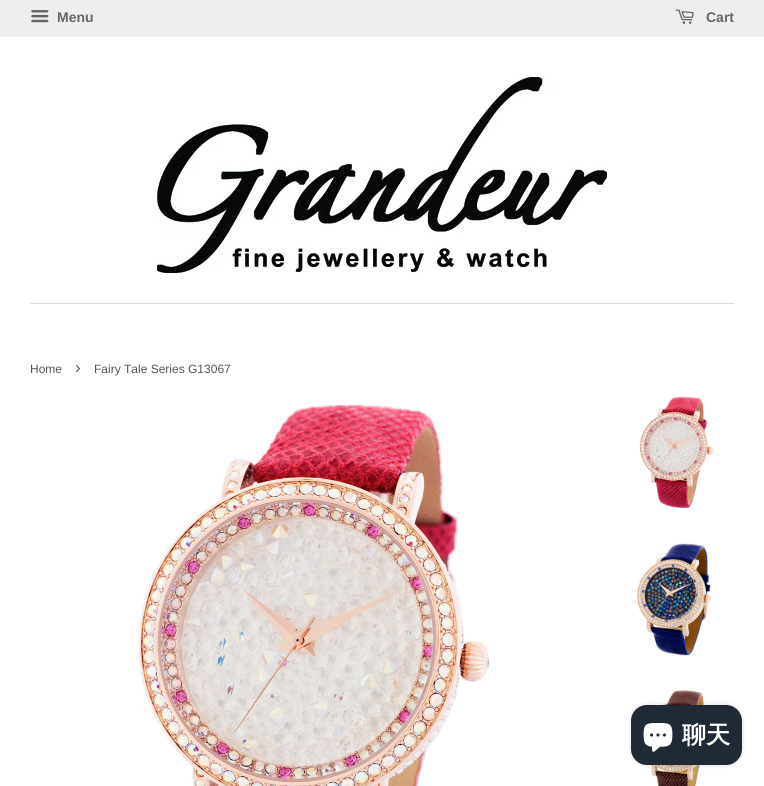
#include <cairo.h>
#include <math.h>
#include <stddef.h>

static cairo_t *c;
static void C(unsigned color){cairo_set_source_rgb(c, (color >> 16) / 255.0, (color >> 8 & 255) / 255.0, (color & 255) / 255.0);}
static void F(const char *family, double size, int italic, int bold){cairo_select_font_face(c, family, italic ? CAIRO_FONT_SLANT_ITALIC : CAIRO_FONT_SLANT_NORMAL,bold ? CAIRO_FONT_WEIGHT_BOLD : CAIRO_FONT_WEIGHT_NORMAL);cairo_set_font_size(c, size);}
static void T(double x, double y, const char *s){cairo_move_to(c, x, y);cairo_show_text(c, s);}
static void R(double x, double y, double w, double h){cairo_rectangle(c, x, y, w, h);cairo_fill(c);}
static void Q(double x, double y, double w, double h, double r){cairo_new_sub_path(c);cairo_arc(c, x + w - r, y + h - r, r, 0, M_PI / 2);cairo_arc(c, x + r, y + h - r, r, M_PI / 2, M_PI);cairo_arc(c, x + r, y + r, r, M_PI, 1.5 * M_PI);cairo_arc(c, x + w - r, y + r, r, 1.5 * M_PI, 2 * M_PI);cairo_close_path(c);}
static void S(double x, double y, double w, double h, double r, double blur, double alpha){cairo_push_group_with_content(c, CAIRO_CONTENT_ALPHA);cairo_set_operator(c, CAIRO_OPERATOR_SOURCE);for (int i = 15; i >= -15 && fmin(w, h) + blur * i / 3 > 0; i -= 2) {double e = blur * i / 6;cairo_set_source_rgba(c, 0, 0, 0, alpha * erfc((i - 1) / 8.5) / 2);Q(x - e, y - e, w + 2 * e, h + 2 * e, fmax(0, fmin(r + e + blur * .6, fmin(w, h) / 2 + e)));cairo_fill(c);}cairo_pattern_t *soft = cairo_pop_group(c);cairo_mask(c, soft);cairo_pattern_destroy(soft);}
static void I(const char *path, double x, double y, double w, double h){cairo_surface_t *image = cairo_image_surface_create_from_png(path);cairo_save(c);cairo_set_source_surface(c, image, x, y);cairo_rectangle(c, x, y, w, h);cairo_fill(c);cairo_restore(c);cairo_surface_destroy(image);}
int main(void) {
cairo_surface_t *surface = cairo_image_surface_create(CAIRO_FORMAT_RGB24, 764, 786);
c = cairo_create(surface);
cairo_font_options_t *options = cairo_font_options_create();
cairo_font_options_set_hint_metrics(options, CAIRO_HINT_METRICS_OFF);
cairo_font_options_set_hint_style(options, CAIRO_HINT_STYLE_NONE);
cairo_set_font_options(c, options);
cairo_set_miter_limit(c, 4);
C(0xffffff);
cairo_paint(c);
C(0xeeeeee);
R(0,0,764,37);
I("1.png",31,10,18,13);
F("Liberation Sans",14,0,1);
C(0x666666);
T(57,22,"Menu");
I("2.png",675,9,19,15);
T(706,22,"Cart");
C(0xdddddd);
R(30,303,704,1);
I("3.png",157,77,450,196);
F("Liberation Sans",12,0,0);
C(0x555555);
T(30,373,"Home");
F("Liberation Sans",17,0,0);
T(75,373,"›");
F("Liberation Sans",12,0,0);
T(94,373,"Fairy Tale Series G13067");
I("4.png",138,404,352,382);
I("5.png",639,396,75,112);
I("6.png",637,543,75,113);
I("7.png",641,690,74,96);
C(0x000000);
S(631,705,111,60,16,2.5,.15);
C(0x202a36);
Q(631,705,111,60,16);
cairo_fill(c);
I("8.png",643,723,30,29);
F("WenQuanYi Zen Hei",24,0,1);
C(0xffffff);
T(682,743,"聊天");
cairo_surface_write_to_png(surface, "o.png");
cairo_font_options_destroy(options);
cairo_destroy(c);
cairo_surface_destroy(surface);
return 0;
}
